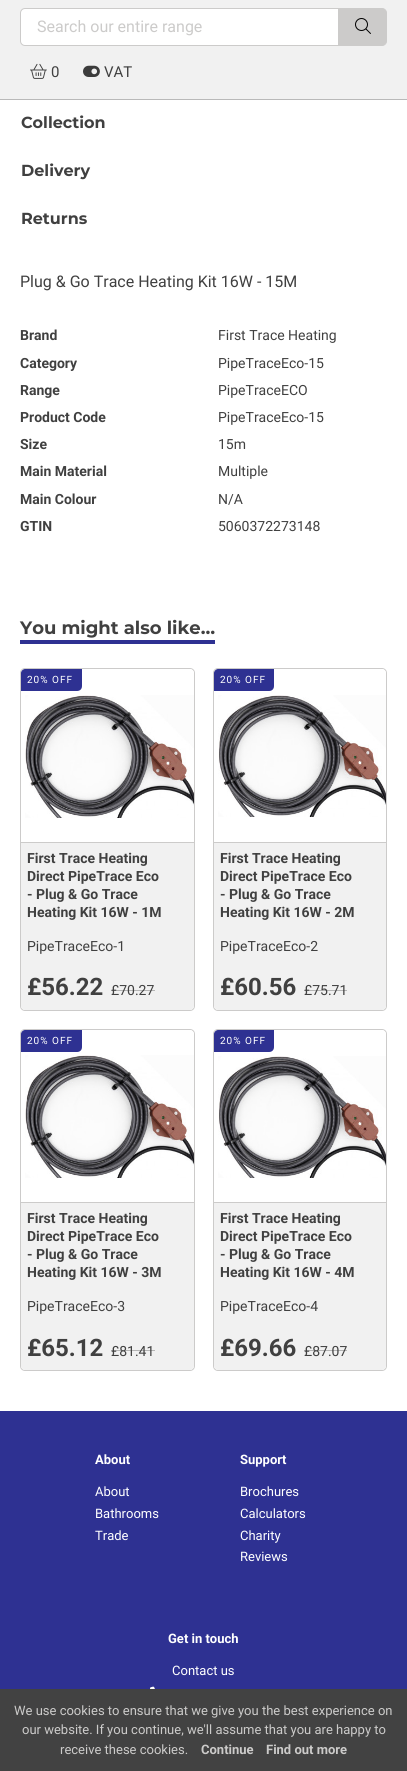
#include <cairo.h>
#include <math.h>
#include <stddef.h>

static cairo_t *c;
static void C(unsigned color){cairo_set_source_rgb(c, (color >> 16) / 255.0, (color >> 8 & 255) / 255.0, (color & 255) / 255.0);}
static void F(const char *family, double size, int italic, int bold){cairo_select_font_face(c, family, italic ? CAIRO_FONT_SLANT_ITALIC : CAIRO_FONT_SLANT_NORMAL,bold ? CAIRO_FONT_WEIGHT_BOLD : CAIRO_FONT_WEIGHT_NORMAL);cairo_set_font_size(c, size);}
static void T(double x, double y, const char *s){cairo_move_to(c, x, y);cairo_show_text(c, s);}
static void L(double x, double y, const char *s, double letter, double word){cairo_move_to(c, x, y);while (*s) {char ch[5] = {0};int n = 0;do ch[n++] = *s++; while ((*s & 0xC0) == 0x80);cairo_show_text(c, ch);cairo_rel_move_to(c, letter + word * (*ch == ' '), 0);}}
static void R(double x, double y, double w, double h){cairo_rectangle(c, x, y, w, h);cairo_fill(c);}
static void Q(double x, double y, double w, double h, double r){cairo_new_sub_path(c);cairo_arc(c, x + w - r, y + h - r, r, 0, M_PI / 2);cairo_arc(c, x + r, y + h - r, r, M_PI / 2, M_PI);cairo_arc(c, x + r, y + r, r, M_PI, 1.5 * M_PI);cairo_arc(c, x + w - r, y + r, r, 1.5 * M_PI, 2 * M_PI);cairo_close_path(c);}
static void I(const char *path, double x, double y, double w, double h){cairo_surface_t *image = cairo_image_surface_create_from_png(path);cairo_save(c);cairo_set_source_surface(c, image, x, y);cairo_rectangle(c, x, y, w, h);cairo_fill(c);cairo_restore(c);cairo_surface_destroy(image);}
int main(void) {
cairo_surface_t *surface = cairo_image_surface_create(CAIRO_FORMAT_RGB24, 407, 1771);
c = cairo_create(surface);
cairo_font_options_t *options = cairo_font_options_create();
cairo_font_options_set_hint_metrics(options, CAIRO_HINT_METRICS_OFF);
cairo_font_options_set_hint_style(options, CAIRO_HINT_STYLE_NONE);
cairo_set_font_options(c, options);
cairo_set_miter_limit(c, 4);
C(0xffffff);
cairo_paint(c);
C(0xf1f1f1);
R(0,0,407,99);
C(0xb9b9b9);
R(0,99,407,1);
C(0xffffff);
cairo_new_path(c);
cairo_move_to(c,25,8.5);
cairo_line_to(c,338.5,8.5);
cairo_line_to(c,338.5,45.5);
cairo_line_to(c,25,45.5);
cairo_curve_to(c,22.5,45.5,20.5,43.5,20.5,41);
cairo_line_to(c,20.5,13);
cairo_curve_to(c,20.5,10.5,22.5,8.5,25,8.5);
cairo_close_path(c);
cairo_fill_preserve(c);
C(0xcccbca);
cairo_set_line_width(c,1);
cairo_stroke(c);
F("Roboto",16,0,0);
T(37,32,"Search our entire range");
cairo_new_path(c);
cairo_move_to(c,339.5,8.5);
cairo_line_to(c,382,8.5);
cairo_curve_to(c,384.5,8.5,386.5,10.5,386.5,13);
cairo_line_to(c,386.5,41);
cairo_curve_to(c,386.5,43.5,384.5,45.5,382,45.5);
cairo_line_to(c,339.5,45.5);
cairo_close_path(c);
cairo_fill_preserve(c);
cairo_stroke(c);
I("1.png",355,18,16,16);
I("2.png",30,63,17,16);
F("Roboto",15,0,0);
C(0x404040);
T(51,77,"0");
I("3.png",83,65,17,12);
T(104,77,"VAT");
F("Montserrat",16,0,1);
T(21,128,"Collection");
T(21,176,"Delivery");
T(21,224,"Returns");
F("Roboto",16,0,0);
T(20,287,"Plug & Go Trace Heating Kit 16W - 15M");
F("Roboto",14,0,1);
T(20,340,"Brand");
F("Roboto",14,0,0);
T(218,340,"First Trace Heating");
F("Roboto",14,0,1);
T(20,368,"Category");
F("Roboto",14,0,0);
T(218,368,"PipeTraceEco-15");
F("Roboto",14,0,1);
T(20,395,"Range");
F("Roboto",14,0,0);
T(218,395,"PipeTraceECO");
F("Roboto",14,0,1);
T(20,422,"Product Code");
F("Roboto",14,0,0);
T(218,422,"PipeTraceEco-15");
F("Roboto",14,0,1);
T(20,449,"Size");
F("Roboto",14,0,0);
T(218,449,"15m");
F("Roboto",14,0,1);
T(20,476,"Main Material");
F("Roboto",14,0,0);
T(218,476,"Multiple");
F("Roboto",14,0,1);
T(20,504,"Main Colour");
F("Roboto",14,0,0);
T(218,504,"N/A");
F("Roboto",14,0,1);
T(20,531,"GTIN");
F("Roboto",14,0,0);
T(218,531,"5060372273148");
F("Montserrat",18,0,1);
T(20,634,"You might also like…");
C(0x2e3192);
R(20,640,195,4);
Q(20.5,668.5,174,342,4.5);
C(0xcccbca);
cairo_stroke(c);
C(0xffffff);
cairo_new_path(c);
cairo_move_to(c,25,669);
cairo_line_to(c,190,669);
cairo_curve_to(c,192,669,194,671,194,673);
cairo_line_to(c,194,842);
cairo_line_to(c,21,842);
cairo_line_to(c,21,673);
cairo_curve_to(c,21,671,23,669,25,669);
cairo_close_path(c);
cairo_fill(c);
C(0x2e3192);
cairo_new_path(c);
cairo_move_to(c,25,669);
cairo_line_to(c,82,669);
cairo_line_to(c,82,686);
cairo_curve_to(c,82,689,80,691,77,691);
cairo_line_to(c,21,691);
cairo_line_to(c,21,673);
cairo_curve_to(c,21,671,23,669,25,669);
cairo_close_path(c);
cairo_fill(c);
F("Roboto",10,0,0);
C(0xffffff);
L(27,683,"20% OFF",1,0);
I("4.png",25,695,169,123);
C(0xf1f1f1);
cairo_new_path(c);
cairo_move_to(c,21,842);
cairo_line_to(c,194,842);
cairo_line_to(c,194,1006);
cairo_curve_to(c,194,1008,192,1010,190,1010);
cairo_line_to(c,25,1010);
cairo_curve_to(c,23,1010,21,1008,21,1006);
cairo_close_path(c);
cairo_fill(c);
C(0xcccbca);
R(21,842,173,1);
F("Roboto",14,0,1);
C(0x404040);
T(27,863,"First Trace Heating");
T(27,881,"Direct PipeTrace Eco");
T(27,899,"- Plug & Go Trace");
T(27,917,"Heating Kit 16W - 1M");
F("Roboto",14,0,0);
T(27,951,"PipeTraceEco-1");
F("Roboto",24,0,1);
T(27,995,"£56.22");
C(0xb5b5b5);
R(111,990,44,1);
F("Roboto",14,0,0);
C(0x404040);
T(111,995,"£70.27");
Q(213.5,668.5,173,342,4.5);
C(0xcccbca);
cairo_stroke(c);
C(0xffffff);
cairo_new_path(c);
cairo_move_to(c,218,669);
cairo_line_to(c,382,669);
cairo_curve_to(c,384,669,386,671,386,673);
cairo_line_to(c,386,842);
cairo_line_to(c,214,842);
cairo_line_to(c,214,673);
cairo_curve_to(c,214,671,216,669,218,669);
cairo_close_path(c);
cairo_fill(c);
C(0x2e3192);
cairo_new_path(c);
cairo_move_to(c,218,669);
cairo_line_to(c,274,669);
cairo_line_to(c,274,686);
cairo_curve_to(c,274,689,272,691,269,691);
cairo_line_to(c,214,691);
cairo_line_to(c,214,673);
cairo_curve_to(c,214,671,216,669,218,669);
cairo_close_path(c);
cairo_fill(c);
F("Roboto",10,0,0);
C(0xffffff);
L(220,683,"20% OFF",1,0);
I("5.png",218,695,168,122);
C(0xf1f1f1);
cairo_new_path(c);
cairo_move_to(c,214,842);
cairo_line_to(c,386,842);
cairo_line_to(c,386,1006);
cairo_curve_to(c,386,1008,384,1010,382,1010);
cairo_line_to(c,218,1010);
cairo_curve_to(c,216,1010,214,1008,214,1006);
cairo_close_path(c);
cairo_fill(c);
C(0xcccbca);
R(214,842,172,1);
F("Roboto",14,0,1);
C(0x404040);
T(220,863,"First Trace Heating");
T(220,881,"Direct PipeTrace Eco");
T(220,899,"- Plug & Go Trace");
T(220,917,"Heating Kit 16W - 2M");
F("Roboto",14,0,0);
T(220,951,"PipeTraceEco-2");
F("Roboto",24,0,1);
T(220,995,"£60.56");
C(0xb5b5b5);
R(304,990,43,1);
F("Roboto",14,0,0);
C(0x404040);
T(304,995,"£75.71");
Q(20.5,1029.5,174,341,4.5);
C(0xcccbca);
cairo_stroke(c);
C(0xffffff);
cairo_new_path(c);
cairo_move_to(c,25,1030);
cairo_line_to(c,190,1030);
cairo_curve_to(c,192,1030,194,1032,194,1034);
cairo_line_to(c,194,1202);
cairo_line_to(c,21,1202);
cairo_line_to(c,21,1034);
cairo_curve_to(c,21,1032,23,1030,25,1030);
cairo_close_path(c);
cairo_fill(c);
C(0x2e3192);
cairo_new_path(c);
cairo_move_to(c,25,1030);
cairo_line_to(c,82,1030);
cairo_line_to(c,82,1047);
cairo_curve_to(c,82,1050,80,1052,77,1052);
cairo_line_to(c,21,1052);
cairo_line_to(c,21,1034);
cairo_curve_to(c,21,1032,23,1030,25,1030);
cairo_close_path(c);
cairo_fill(c);
F("Roboto",10,0,0);
C(0xffffff);
L(27,1044,"20% OFF",1,0);
I("6.png",25,1055,169,123);
C(0xf1f1f1);
cairo_new_path(c);
cairo_move_to(c,21,1202);
cairo_line_to(c,194,1202);
cairo_line_to(c,194,1366);
cairo_curve_to(c,194,1368,192,1370,190,1370);
cairo_line_to(c,25,1370);
cairo_curve_to(c,23,1370,21,1368,21,1366);
cairo_close_path(c);
cairo_fill(c);
C(0xcccbca);
R(21,1202,173,1);
F("Roboto",14,0,1);
C(0x404040);
T(27,1223,"First Trace Heating");
T(27,1241,"Direct PipeTrace Eco");
T(27,1259,"- Plug & Go Trace");
T(27,1277,"Heating Kit 16W - 3M");
F("Roboto",14,0,0);
T(27,1311,"PipeTraceEco-3");
F("Roboto",24,0,1);
T(27,1356,"£65.12");
C(0xb5b5b5);
R(111,1350,44,1);
F("Roboto",14,0,0);
C(0x404040);
T(111,1356,"£81.41");
Q(213.5,1029.5,173,341,4.5);
C(0xcccbca);
cairo_stroke(c);
C(0xffffff);
cairo_new_path(c);
cairo_move_to(c,218,1030);
cairo_line_to(c,382,1030);
cairo_curve_to(c,384,1030,386,1032,386,1034);
cairo_line_to(c,386,1202);
cairo_line_to(c,214,1202);
cairo_line_to(c,214,1034);
cairo_curve_to(c,214,1032,216,1030,218,1030);
cairo_close_path(c);
cairo_fill(c);
C(0x2e3192);
cairo_new_path(c);
cairo_move_to(c,218,1030);
cairo_line_to(c,274,1030);
cairo_line_to(c,274,1047);
cairo_curve_to(c,274,1050,272,1052,269,1052);
cairo_line_to(c,214,1052);
cairo_line_to(c,214,1034);
cairo_curve_to(c,214,1032,216,1030,218,1030);
cairo_close_path(c);
cairo_fill(c);
F("Roboto",10,0,0);
C(0xffffff);
L(220,1044,"20% OFF",1,0);
I("5.png",218,1056,168,122);
C(0xf1f1f1);
cairo_new_path(c);
cairo_move_to(c,214,1202);
cairo_line_to(c,386,1202);
cairo_line_to(c,386,1366);
cairo_curve_to(c,386,1368,384,1370,382,1370);
cairo_line_to(c,218,1370);
cairo_curve_to(c,216,1370,214,1368,214,1366);
cairo_close_path(c);
cairo_fill(c);
C(0xcccbca);
R(214,1202,172,1);
F("Roboto",14,0,1);
C(0x404040);
T(220,1223,"First Trace Heating");
T(220,1241,"Direct PipeTrace Eco");
T(220,1259,"- Plug & Go Trace");
T(220,1277,"Heating Kit 16W - 4M");
F("Roboto",14,0,0);
T(220,1311,"PipeTraceEco-4");
F("Roboto",24,0,1);
T(220,1356,"£69.66");
C(0xb5b5b5);
R(304,1350,43,1);
F("Roboto",14,0,0);
C(0x404040);
T(304,1356,"£87.07");
C(0x2e3192);
R(0,1411,407,278);
F("Roboto",13,0,1);
C(0xffffff);
T(95,1464,"About");
F("Roboto",13,0,0);
T(95,1496,"About");
T(95,1518,"Bathrooms");
T(95,1540,"Trade");
F("Roboto",13,0,1);
T(240,1464,"Support");
F("Roboto",13,0,0);
T(240,1496,"Brochures");
T(240,1518,"Calculators");
T(240,1540,"Charity");
T(240,1561,"Reviews");
F("Roboto",13,0,1);
T(168,1643,"Get in touch");
F("Roboto",13,0,0);
T(172,1675,"Contact us");
I("7.png",150,1686,5,3);
C(0x424242);
R(0,1689,407,82);
C(0xcccbca);
T(14,1715,"We use cookies to ensure that we give you the best experience on");
T(22,1734,"our website. If you continue, we'll assume that you are happy to");
T(60,1754,"receive these cookies.");
F("Roboto",13,0,1);
T(201,1754,"Continue");
T(266,1754,"Find out more");
cairo_surface_write_to_png(surface, "o.png");
cairo_font_options_destroy(options);
cairo_destroy(c);
cairo_surface_destroy(surface);
return 0;
}
